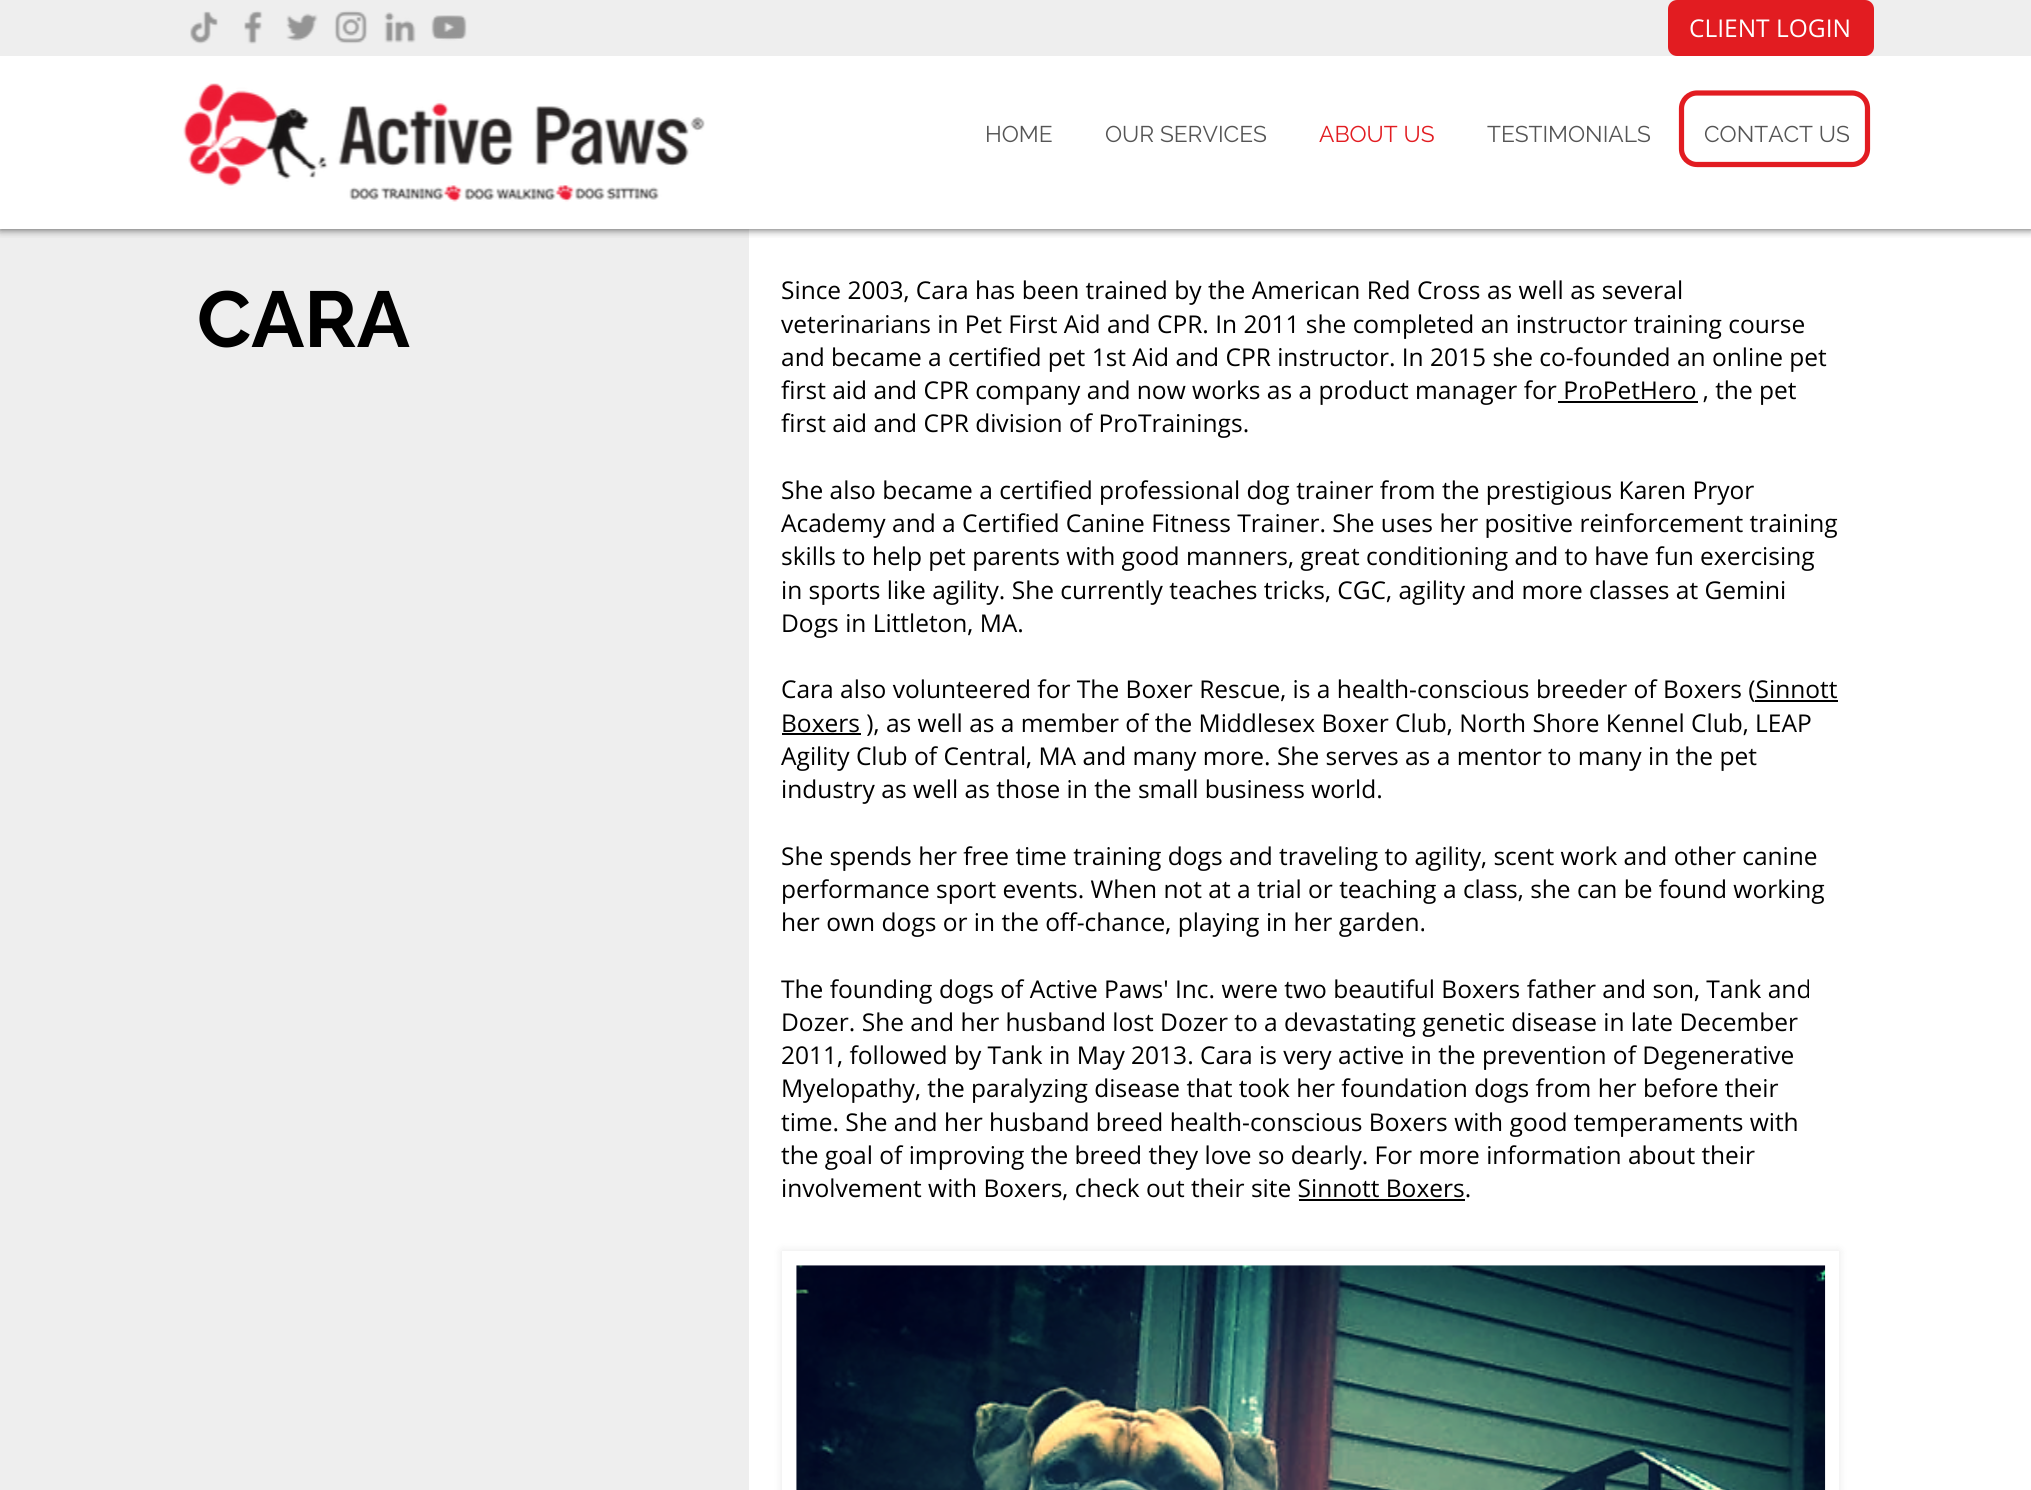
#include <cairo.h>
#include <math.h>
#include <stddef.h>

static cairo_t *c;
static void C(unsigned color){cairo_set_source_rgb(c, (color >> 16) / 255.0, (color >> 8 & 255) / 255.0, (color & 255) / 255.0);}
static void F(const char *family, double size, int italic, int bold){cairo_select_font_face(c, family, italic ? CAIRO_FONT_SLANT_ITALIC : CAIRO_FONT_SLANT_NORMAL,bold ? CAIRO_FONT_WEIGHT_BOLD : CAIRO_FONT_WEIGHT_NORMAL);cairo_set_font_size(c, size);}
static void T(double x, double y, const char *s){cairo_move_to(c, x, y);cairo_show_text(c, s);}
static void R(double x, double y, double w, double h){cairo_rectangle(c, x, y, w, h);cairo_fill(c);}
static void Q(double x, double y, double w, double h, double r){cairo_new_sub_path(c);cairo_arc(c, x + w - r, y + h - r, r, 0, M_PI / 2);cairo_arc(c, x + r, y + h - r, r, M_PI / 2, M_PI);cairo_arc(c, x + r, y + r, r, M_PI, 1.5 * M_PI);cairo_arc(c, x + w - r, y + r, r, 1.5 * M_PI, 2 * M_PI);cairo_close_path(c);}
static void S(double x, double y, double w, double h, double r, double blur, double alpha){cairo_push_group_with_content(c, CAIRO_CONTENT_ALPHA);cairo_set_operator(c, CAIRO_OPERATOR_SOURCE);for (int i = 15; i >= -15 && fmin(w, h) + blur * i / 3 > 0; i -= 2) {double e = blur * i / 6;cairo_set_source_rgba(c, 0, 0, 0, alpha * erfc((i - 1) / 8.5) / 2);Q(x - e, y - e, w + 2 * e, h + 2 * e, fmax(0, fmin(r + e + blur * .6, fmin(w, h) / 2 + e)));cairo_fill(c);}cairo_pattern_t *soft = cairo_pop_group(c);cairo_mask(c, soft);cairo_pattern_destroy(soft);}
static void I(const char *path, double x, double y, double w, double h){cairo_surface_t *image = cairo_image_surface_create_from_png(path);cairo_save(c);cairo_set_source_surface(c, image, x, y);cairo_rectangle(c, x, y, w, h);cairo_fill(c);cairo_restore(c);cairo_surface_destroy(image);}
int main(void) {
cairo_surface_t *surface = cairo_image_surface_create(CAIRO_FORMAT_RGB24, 2031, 1490);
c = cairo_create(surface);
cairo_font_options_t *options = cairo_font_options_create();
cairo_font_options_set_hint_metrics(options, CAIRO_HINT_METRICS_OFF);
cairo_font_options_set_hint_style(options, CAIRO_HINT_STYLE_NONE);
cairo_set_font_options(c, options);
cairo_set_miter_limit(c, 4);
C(0xffffff);
cairo_paint(c);
C(0xeeeeee);
R(0,229,749,1261);
cairo_save(c);
cairo_rectangle(c,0,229,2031,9);
cairo_clip(c);
C(0x000000);
S(0,0,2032,229,0,4.5,.7);
cairo_restore(c);
R(0,0,2031,56);
I("1.png",190,11,28,33);
I("2.png",244,10,19,34);
I("3.png",286,13,32,28);
I("4.png",334,10,34,34);
I("5.png",384,12,32,31);
I("6.png",431,15,36,26);
C(0xe21c21);
Q(1668,0,206,56,9);
cairo_fill(c);
F("Open Sans",24.5,0,0);
C(0xffffff);
T(1689,37,"CLIENT LOGIN");
I("7.png",183,83,522,119);
F("Raleway",22.75,0,0);
C(0x555555);
T(1704,142,"CONTACT US");
cairo_new_path(c);
cairo_move_to(c,1852,164.5);
cairo_line_to(c,1697,164.5);
cairo_curve_to(c,1688.5,164.5,1681.5,157.5,1681.5,149);
cairo_line_to(c,1681.5,108.5);
cairo_curve_to(c,1681.5,100,1688.5,93,1697,93);
cairo_line_to(c,1852,93);
cairo_curve_to(c,1860.5,93,1867.5,99.5,1867.5,108.5);
cairo_line_to(c,1867.5,149);
cairo_curve_to(c,1867.5,157.5,1860.5,164.5,1852,164.5);
cairo_close_path(c);
C(0xe21c21);
cairo_set_line_width(c,5.2);
cairo_stroke(c);
C(0x555555);
T(985,142,"HOME");
T(1105,142,"OUR SERVICES");
C(0xe21c21);
T(1319,142,"ABOUT US");
C(0x555555);
T(1487,142,"TESTIMONIALS");
F("Raleway",79,0,1);
C(0x000000);
T(197,347,"CARA");
F("Open Sans",24.5,0,0);
T(781,299,"Since 2003, Cara has been trained by the American Red Cross as well as several");
T(781,333,"veterinarians in Pet First Aid and CPR. In 2011 she completed an instructor training course");
T(781,366,"and became a certified pet 1st Aid and CPR instructor. In 2015 she co-founded an online pet");
T(781,399,"first aid and CPR company and now works as a product manager for ProPetHero , the pet");
R(1558,401,140,2);
T(781,432,"first aid and CPR division of ProTrainings.");
T(781,499,"She also became a certified professional dog trainer from the prestigious Karen Pryor");
T(781,532,"Academy and a Certified Canine Fitness Trainer. She uses her positive reinforcement training");
T(781,565,"skills to help pet parents with good manners, great conditioning and to have fun exercising");
T(781,599,"in sports like agility. She currently teaches tricks, CGC, agility and more classes at Gemini");
T(781,632,"Dogs in Littleton, MA.");
T(781,698,"Cara also volunteered for The Boxer Rescue, is a health-conscious breeder of Boxers (Sinnott");
R(1755,700,83,2);
R(782,733,79,2);
T(781,732,"Boxers ), as well as a member of the Middlesex Boxer Club, North Shore Kennel Club, LEAP");
T(781,765,"Agility Club of Central, MA and many more. She serves as a mentor to many in the pet");
T(781,798,"industry as well as those in the small business world.");
T(781,865,"She spends her free time training dogs and traveling to agility, scent work and other canine");
T(781,898,"performance sport events. When not at a trial or teaching a class, she can be found working");
T(781,931,"her own dogs or in the off-chance, playing in her garden.");
T(781,998,"The founding dogs of Active Paws' Inc. were two beautiful Boxers father and son, Tank and");
T(781,1031,"Dozer. She and her husband lost Dozer to a devastating genetic disease in late December");
T(781,1064,"2011, followed by Tank in May 2013. Cara is very active in the prevention of Degenerative");
T(781,1097,"Myelopathy, the paralyzing disease that took her foundation dogs from her before their");
T(781,1131,"time. She and her husband breed health-conscious Boxers with good temperaments with");
T(781,1164,"the goal of improving the breed they love so dearly. For more information about their");
T(781,1197,"involvement with Boxers, check out their site Sinnott Boxers.");
R(1299,1199,166,2);
C(0x000000);
S(782,1251,1057,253,0,4.5,.1);
C(0xffffff);
R(782,1251,1057,239);
I("8.png",796,1265,1030,225);
cairo_surface_write_to_png(surface, "o.png");
cairo_font_options_destroy(options);
cairo_destroy(c);
cairo_surface_destroy(surface);
return 0;
}
